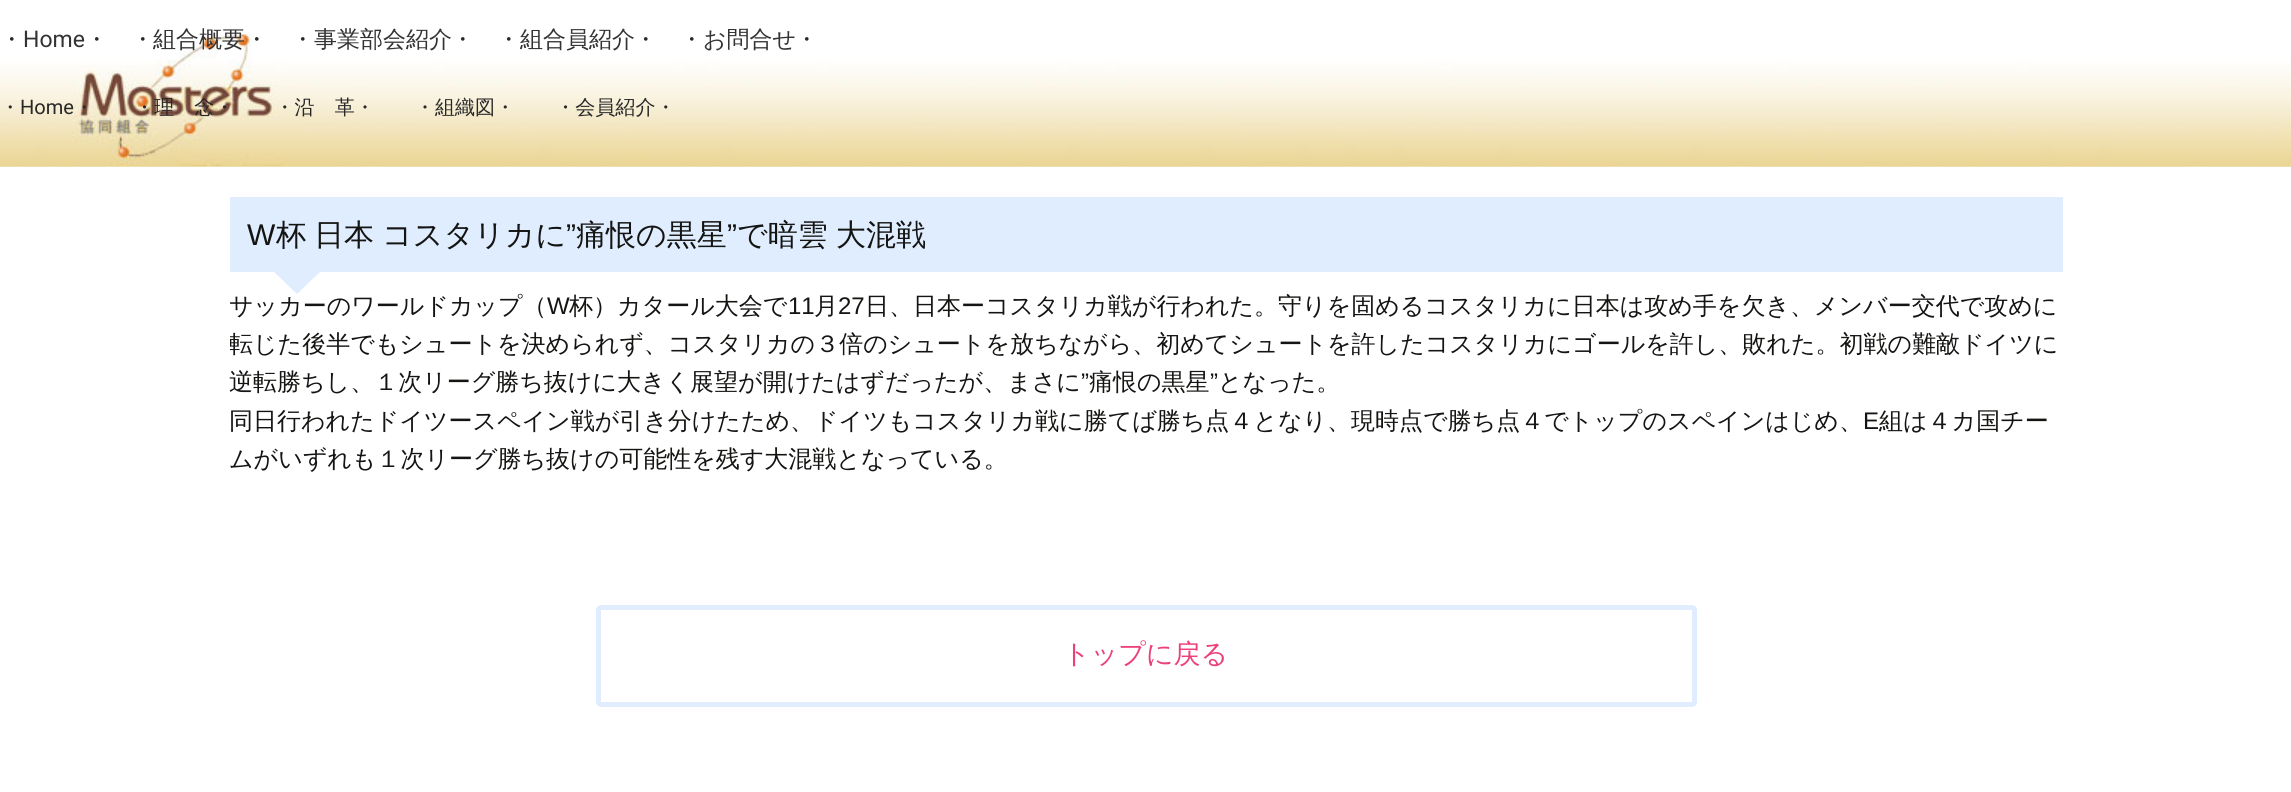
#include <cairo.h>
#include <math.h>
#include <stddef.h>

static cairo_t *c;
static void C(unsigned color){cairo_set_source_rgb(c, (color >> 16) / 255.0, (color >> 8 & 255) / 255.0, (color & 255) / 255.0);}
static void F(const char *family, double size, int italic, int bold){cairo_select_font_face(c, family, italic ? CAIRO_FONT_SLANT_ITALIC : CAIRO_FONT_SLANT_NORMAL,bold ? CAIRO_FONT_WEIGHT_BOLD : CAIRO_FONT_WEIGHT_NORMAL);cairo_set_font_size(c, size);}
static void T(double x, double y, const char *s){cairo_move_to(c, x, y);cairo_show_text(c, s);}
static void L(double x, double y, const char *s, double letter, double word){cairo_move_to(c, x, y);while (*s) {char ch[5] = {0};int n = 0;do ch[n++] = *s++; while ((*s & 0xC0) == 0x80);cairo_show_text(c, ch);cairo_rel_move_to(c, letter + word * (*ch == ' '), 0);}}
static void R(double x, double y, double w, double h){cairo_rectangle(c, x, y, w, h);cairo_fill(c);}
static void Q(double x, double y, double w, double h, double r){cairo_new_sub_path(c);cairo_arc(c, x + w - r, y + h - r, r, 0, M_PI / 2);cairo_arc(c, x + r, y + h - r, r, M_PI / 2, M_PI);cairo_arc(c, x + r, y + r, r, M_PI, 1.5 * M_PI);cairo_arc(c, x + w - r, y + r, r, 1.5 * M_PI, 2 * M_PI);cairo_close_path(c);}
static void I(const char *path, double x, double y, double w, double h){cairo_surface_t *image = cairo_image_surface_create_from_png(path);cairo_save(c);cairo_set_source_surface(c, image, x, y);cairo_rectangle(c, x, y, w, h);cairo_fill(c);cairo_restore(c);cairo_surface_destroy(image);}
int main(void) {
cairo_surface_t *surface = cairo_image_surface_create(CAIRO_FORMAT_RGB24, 2291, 792);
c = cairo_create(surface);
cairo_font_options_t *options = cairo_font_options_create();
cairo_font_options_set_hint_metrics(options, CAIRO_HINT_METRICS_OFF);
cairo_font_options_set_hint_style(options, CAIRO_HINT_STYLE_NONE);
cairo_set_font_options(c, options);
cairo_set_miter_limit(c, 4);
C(0xffffff);
cairo_paint(c);
I("1.png",0,34,2291,133);
F("WenQuanYi Zen Hei Medium",23,0,0);
C(0x282828);
T(0,47,"・");
F("Roboto",23,0,0);
C(0x333333);
T(23,47,"Home");
F("WenQuanYi Zen Hei Medium",23,0,0);
C(0x282828);
T(85,47,"・　・");
C(0x333333);
T(153,47,"組合概要");
C(0x282828);
T(245,47,"・　・");
C(0x333333);
T(314,47,"事業部会紹介");
C(0x282828);
T(451,47,"・　・");
C(0x333333);
T(520,47,"組合員紹介");
C(0x282828);
T(634,47,"・　・");
C(0x333333);
T(703,47,"お問合せ");
C(0x282828);
T(795,47,"・");
F("WenQuanYi Zen Hei Medium",20.05,0,0);
T(0,114,"・");
F("Roboto",20.05,0,0);
T(20,114,"Home");
F("WenQuanYi Zen Hei Medium",20.05,0,0);
T(74,114,"・　　・理　念・　　・沿　革・　　・組織図・　　・会員紹介・");
I("2.png",0,166,2291,1);
C(0xe0edff);
R(230,197,1833,75);
F("Liberation Sans",30,0,0);
C(0x141412);
T(247,245,"W");
F("WenQuanYi Zen Hei Medium",30,0,0);
L(276,245,"杯 日本 コスタリカに",0,-1);
F("Liberation Sans",30,0,0);
T(566,245,"”");
F("WenQuanYi Zen Hei Medium",30,0,0);
T(576,245,"痛恨の黒星");
F("Liberation Sans",30,0,0);
T(727,245,"”");
F("WenQuanYi Zen Hei Medium",30,0,0);
T(737,245,"で暗雲");
T(836,245,"大混戦");
F("WenQuanYi Zen Hei Medium",24,0,0);
T(229,314,"サッカーのワールドカップ（");
C(0xe0edff);
cairo_new_path(c);
cairo_move_to(c,274,272);
cairo_line_to(c,320,272);
cairo_line_to(c,297,294);
cairo_close_path(c);
cairo_fill(c);
F("Liberation Sans",24,0,0);
C(0x141412);
T(547,314,"W");
F("WenQuanYi Zen Hei Medium",24,0,0);
T(569,314,"杯）カタール大会で");
F("Liberation Sans",24,0,0);
T(788,314,"11");
F("WenQuanYi Zen Hei Medium",24,0,0);
T(814,314,"月");
F("Liberation Sans",24,0,0);
T(838,314,"27");
F("WenQuanYi Zen Hei Medium",24,0,0);
T(865,314,"日、日本ーコスタリカ戦が行われた。守りを固めるコスタリカに日本は攻め手を欠き、メンバー交代で攻めに");
cairo_save(c);
cairo_rectangle(c,230,167,1833,570);
cairo_clip(c);
T(229,352,"転じた後半でもシュートを決められず、コスタリカの３倍のシュートを放ちながら、初めてシュートを許したコスタリカにゴールを許し、敗れた。初戦の難敵ドイツに");
cairo_restore(c);
T(229,390,"逆転勝ちし、１次リーグ勝ち抜けに大きく展望が開けたはずだったが、まさに");
F("Liberation Sans",24,0,0);
T(1081,390,"”");
F("WenQuanYi Zen Hei Medium",24,0,0);
T(1089,390,"痛恨の黒星");
F("Liberation Sans",24,0,0);
T(1210,390,"”");
F("WenQuanYi Zen Hei Medium",24,0,0);
T(1218,390,"となった。");
T(229,429,"同日行われたドイツースペイン戦が引き分けたため、ドイツもコスタリカ戦に勝てば勝ち点４となり、現時点で勝ち点４でトップのスペインはじめ、");
F("Liberation Sans",24,0,0);
T(1863,429,"E");
F("WenQuanYi Zen Hei Medium",24,0,0);
T(1879,429,"組は４カ国チー");
T(229,467,"ムがいずれも１次リーグ勝ち抜けの可能性を残す大混戦となっている。");
Q(598.5,607.5,1096,97,2.5);
C(0xe0edff);
cairo_set_line_width(c,5);
cairo_stroke(c);
F("WenQuanYi Zen Hei Medium",27,0,0);
C(0xec407a);
T(1063,663,"トップに戻る");
cairo_surface_write_to_png(surface, "o.png");
cairo_font_options_destroy(options);
cairo_destroy(c);
cairo_surface_destroy(surface);
return 0;
}
